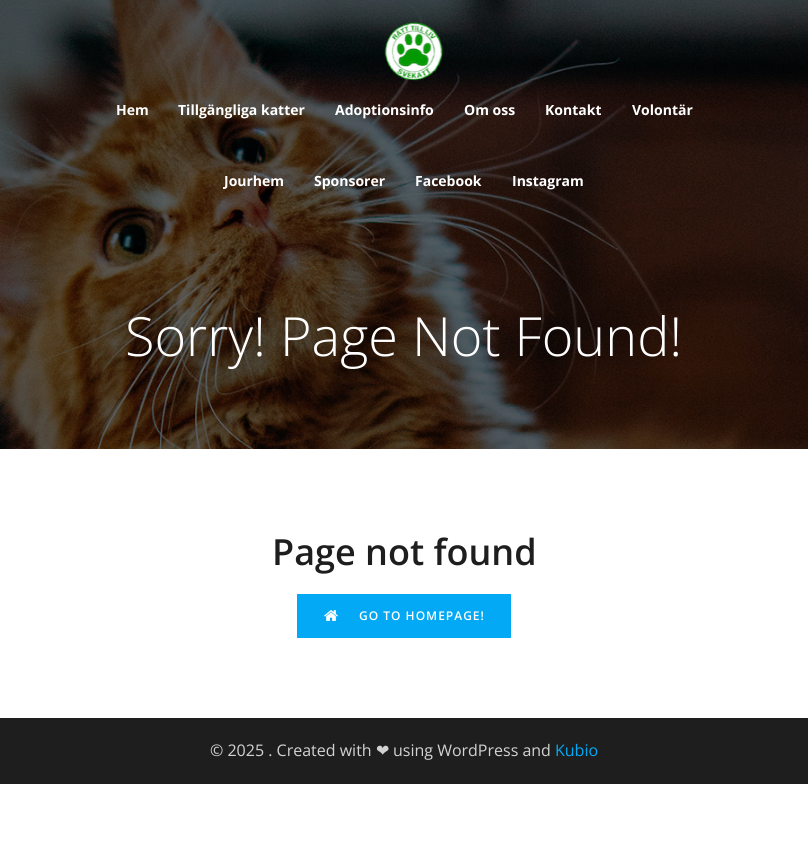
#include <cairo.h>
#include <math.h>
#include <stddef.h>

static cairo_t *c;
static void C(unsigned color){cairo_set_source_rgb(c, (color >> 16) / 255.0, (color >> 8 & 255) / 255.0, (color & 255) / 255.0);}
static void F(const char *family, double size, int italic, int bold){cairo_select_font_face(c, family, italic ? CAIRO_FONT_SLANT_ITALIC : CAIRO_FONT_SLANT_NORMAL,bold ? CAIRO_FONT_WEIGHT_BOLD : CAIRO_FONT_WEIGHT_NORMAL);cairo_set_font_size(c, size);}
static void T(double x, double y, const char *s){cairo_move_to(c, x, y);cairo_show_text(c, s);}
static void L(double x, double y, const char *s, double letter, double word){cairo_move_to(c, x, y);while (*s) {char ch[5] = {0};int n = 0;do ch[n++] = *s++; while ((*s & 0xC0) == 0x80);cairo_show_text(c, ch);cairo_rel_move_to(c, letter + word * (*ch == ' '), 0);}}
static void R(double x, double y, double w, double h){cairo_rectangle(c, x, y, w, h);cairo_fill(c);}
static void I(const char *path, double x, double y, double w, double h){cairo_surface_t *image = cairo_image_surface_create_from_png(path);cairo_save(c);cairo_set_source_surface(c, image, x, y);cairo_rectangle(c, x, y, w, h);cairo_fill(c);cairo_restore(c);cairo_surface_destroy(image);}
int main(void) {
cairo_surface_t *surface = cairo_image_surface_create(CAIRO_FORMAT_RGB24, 808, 860);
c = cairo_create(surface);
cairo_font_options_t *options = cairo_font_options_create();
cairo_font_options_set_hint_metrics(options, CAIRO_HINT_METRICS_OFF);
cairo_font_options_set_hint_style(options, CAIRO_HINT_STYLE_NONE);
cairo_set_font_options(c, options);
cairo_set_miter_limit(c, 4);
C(0xffffff);
cairo_paint(c);
I("2.png",0,0,808,449);
I("1.png",384,22,59,59);
F("Open Sans",14,0,1);
C(0xffffff);
T(116,115,"Hem");
T(178,115,"Tillgängliga katter");
T(335,115,"Adoptionsinfo");
T(464,115,"Om oss");
T(545,115,"Kontakt");
T(632,115,"Volontär");
T(224,186,"Jourhem");
T(314,186,"Sponsorer");
T(415,186,"Facebook");
T(512,186,"Instagram");
F("Open Sans Light",54,0,0);
T(125,356,"Sorry! Page Not Found!");
F("Open Sans SemiBold",36,0,0);
C(0x1e1e1e);
T(272,565,"Page not found");
C(0x03a9f4);
R(297,594,214,44);
I("3.png",324,610,14,11);
F("Open Sans SemiBold",12,0,0);
C(0xffffff);
L(359,620,"GO TO HOMEPAGE!",1,0);
C(0x1e1e1e);
R(0,718,808,66);
F("Open Sans",16,0,0);
C(0xd2d2d2);
T(210,756,"© 2025 . Created with");
F("DejaVu Sans",16,0,0);
T(376,756,"❤");
F("Open Sans",16,0,0);
T(393,756,"using WordPress and");
C(0x03a9f4);
T(555,756,"Kubio");
cairo_surface_write_to_png(surface, "o.png");
cairo_font_options_destroy(options);
cairo_destroy(c);
cairo_surface_destroy(surface);
return 0;
}
